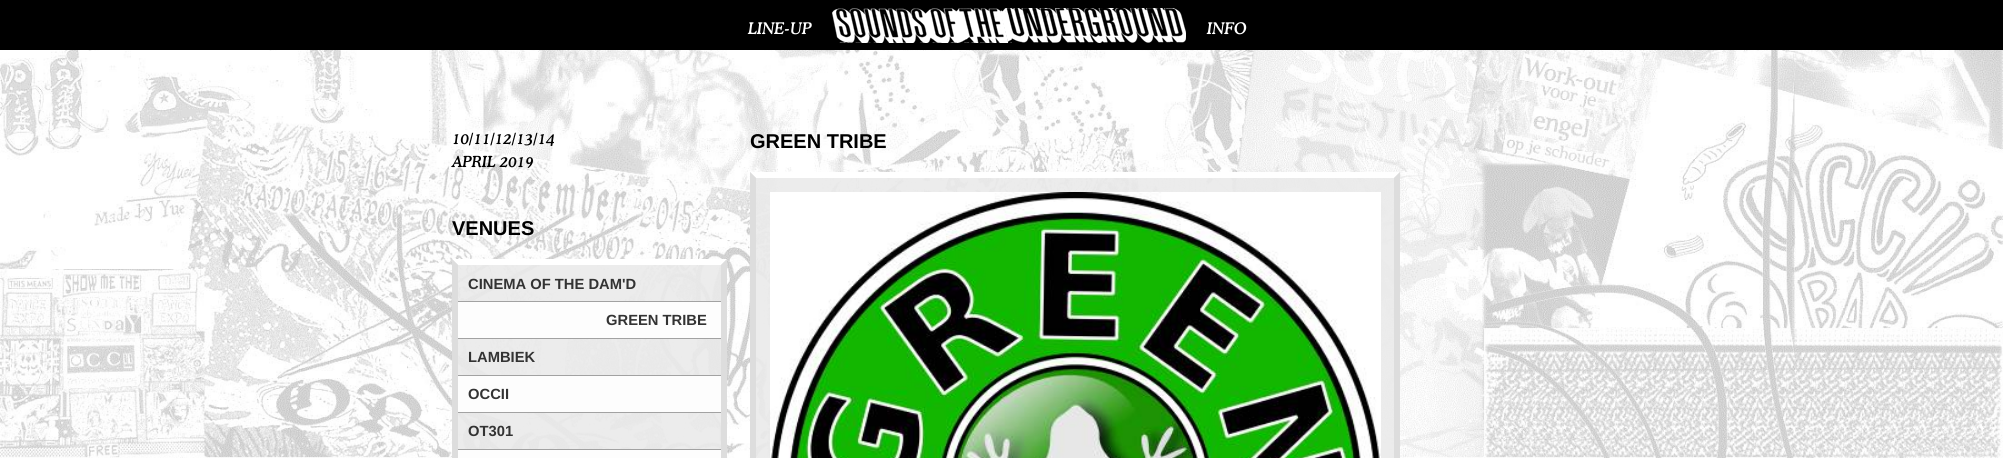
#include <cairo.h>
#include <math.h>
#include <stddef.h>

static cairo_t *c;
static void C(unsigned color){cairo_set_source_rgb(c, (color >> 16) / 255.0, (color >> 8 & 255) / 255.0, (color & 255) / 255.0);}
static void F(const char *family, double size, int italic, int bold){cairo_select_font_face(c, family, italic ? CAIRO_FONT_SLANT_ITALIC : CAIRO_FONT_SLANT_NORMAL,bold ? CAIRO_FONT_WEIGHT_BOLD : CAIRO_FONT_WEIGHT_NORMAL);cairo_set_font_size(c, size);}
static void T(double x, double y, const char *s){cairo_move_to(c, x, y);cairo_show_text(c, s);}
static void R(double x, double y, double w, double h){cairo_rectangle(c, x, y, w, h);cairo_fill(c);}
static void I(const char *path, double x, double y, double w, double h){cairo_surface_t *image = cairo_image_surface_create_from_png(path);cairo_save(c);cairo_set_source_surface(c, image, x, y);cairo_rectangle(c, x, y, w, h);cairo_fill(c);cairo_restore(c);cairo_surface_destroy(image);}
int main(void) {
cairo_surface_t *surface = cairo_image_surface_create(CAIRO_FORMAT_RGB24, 2003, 458);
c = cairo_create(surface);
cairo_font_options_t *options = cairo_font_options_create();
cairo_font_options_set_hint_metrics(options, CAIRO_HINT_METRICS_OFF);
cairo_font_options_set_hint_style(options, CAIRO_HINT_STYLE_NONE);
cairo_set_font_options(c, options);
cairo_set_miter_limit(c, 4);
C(0xffffff);
cairo_paint(c);
I("1.png",0,50,2003,408);
C(0x000000);
R(0,0,2003,50);
F("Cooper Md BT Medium",16,1,0);
C(0xffffff);
T(748,34,"LINE-UP");
I("2.png",832,8,354,35);
T(1207,34,"INFO");
F("Cooper Md BT Medium",15.25,1,0);
C(0x000000);
T(452,144,"10/11/12/13/14");
T(452,167,"APRIL 2019");
F("Liberation Sans",20,0,1);
T(452,235,"VENUES");
cairo_set_source_rgba(c,0.918,0.918,0.918,0.9);
R(452,259,275,199);
C(0xffffff);
cairo_new_path(c);
cairo_move_to(c,452,259);
cairo_line_to(c,727,259);
cairo_line_to(c,721,265);
cairo_line_to(c,458,265);
cairo_close_path(c);
cairo_fill(c);
C(0xdddddd);
cairo_new_path(c);
cairo_move_to(c,727,259);
cairo_line_to(c,727,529);
cairo_line_to(c,721,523);
cairo_line_to(c,721,265);
cairo_close_path(c);
cairo_fill(c);
cairo_new_path(c);
cairo_move_to(c,452,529);
cairo_line_to(c,452,259);
cairo_line_to(c,458,265);
cairo_line_to(c,458,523);
cairo_close_path(c);
cairo_fill(c);
F("Liberation Sans",14.75,0,1);
C(0x333333);
T(468,289,"CINEMA OF THE DAM'D");
cairo_set_source_rgba(c,1,1,1,0.9);
R(458,302,263,36);
C(0xa2a2a2);
R(458,301,263,1);
C(0x333333);
T(606,325,"GREEN TRIBE");
C(0xa2a2a2);
R(458,338,263,1);
C(0x333333);
T(468,362,"LAMBIEK");
cairo_set_source_rgba(c,1,1,1,0.9);
R(458,376,263,36);
C(0xa2a2a2);
R(458,375,263,1);
C(0x333333);
T(468,399,"OCCII");
C(0xa2a2a2);
R(458,412,263,1);
C(0x333333);
T(468,436,"OT301");
cairo_set_source_rgba(c,1,1,1,0.9);
R(458,450,263,8);
C(0xa2a2a2);
R(458,449,263,1);
F("Liberation Sans",20,0,1);
C(0x000000);
T(750,148,"GREEN TRIBE");
cairo_set_source_rgba(c,0.918,0.918,0.918,0.9);
R(750,172,650,286);
C(0xffffff);
cairo_new_path(c);
cairo_move_to(c,750,172);
cairo_line_to(c,1400,172);
cairo_line_to(c,1394,178);
cairo_line_to(c,756,178);
cairo_close_path(c);
cairo_fill(c);
C(0xdddddd);
cairo_new_path(c);
cairo_move_to(c,1400,172);
cairo_line_to(c,1400,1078);
cairo_line_to(c,1394,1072);
cairo_line_to(c,1394,178);
cairo_close_path(c);
cairo_fill(c);
cairo_new_path(c);
cairo_move_to(c,750,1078);
cairo_line_to(c,750,172);
cairo_line_to(c,756,178);
cairo_line_to(c,756,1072);
cairo_close_path(c);
cairo_fill(c);
I("3.png",770,192,611,266);
cairo_surface_write_to_png(surface, "o.png");
cairo_font_options_destroy(options);
cairo_destroy(c);
cairo_surface_destroy(surface);
return 0;
}
